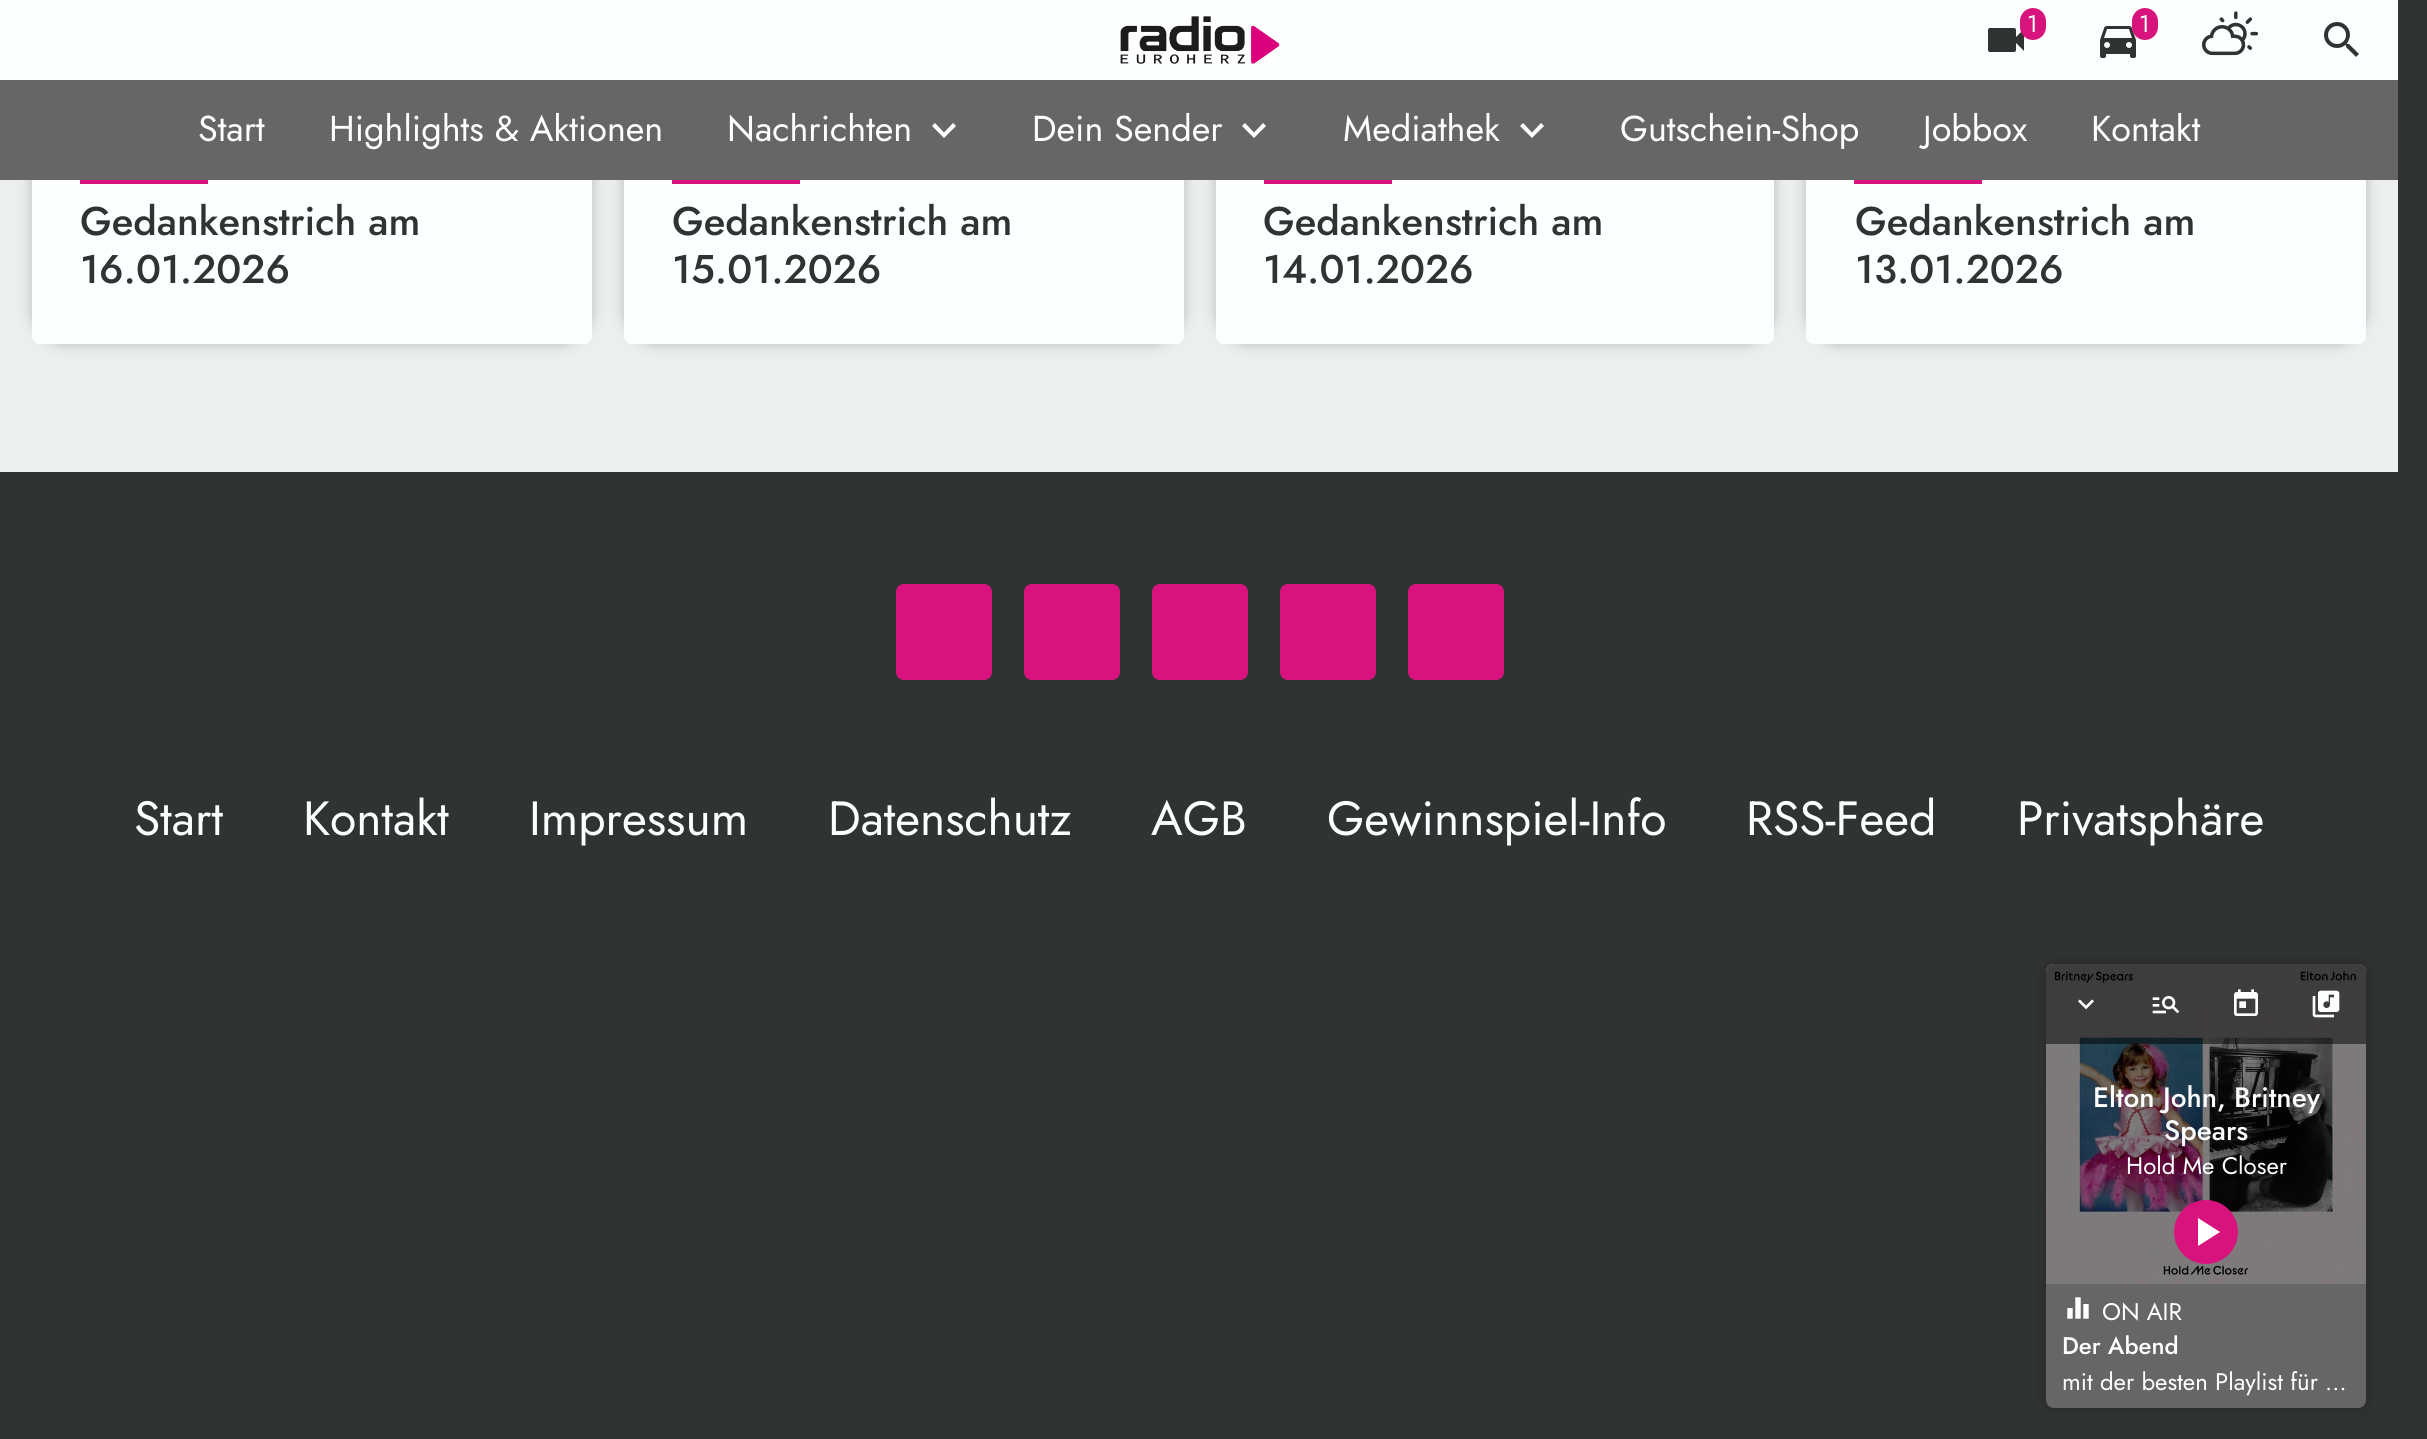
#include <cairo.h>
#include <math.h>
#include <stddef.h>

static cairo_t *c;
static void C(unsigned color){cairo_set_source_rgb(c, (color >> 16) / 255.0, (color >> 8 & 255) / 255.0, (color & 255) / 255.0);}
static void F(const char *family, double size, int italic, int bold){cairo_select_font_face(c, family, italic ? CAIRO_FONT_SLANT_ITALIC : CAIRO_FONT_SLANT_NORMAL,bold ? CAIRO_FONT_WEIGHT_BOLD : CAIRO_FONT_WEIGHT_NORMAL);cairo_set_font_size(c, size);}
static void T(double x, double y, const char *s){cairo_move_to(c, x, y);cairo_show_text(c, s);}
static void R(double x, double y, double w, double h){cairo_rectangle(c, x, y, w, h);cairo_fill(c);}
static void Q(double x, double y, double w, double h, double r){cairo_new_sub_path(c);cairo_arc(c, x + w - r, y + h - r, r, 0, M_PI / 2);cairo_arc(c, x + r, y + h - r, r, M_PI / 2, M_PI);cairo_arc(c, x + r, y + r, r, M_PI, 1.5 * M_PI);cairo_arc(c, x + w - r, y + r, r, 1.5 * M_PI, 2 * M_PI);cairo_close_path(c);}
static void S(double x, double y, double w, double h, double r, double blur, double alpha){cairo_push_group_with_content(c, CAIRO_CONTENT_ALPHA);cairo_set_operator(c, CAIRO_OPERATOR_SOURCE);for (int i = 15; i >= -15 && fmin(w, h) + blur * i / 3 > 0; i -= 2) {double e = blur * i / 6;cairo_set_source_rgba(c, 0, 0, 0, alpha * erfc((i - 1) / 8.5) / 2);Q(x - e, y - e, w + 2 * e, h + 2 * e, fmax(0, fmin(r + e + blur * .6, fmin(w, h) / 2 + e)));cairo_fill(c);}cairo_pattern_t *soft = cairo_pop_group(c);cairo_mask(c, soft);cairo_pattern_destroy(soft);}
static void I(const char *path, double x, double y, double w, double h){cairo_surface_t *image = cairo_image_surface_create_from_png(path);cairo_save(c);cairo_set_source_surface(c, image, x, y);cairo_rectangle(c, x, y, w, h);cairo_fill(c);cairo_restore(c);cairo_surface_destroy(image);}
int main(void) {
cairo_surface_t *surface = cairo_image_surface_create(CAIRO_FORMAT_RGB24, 2427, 1439);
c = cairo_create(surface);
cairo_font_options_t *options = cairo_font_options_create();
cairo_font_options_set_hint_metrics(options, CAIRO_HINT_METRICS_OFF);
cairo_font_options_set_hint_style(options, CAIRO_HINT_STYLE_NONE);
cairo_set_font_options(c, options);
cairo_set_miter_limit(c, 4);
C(0x313333);
cairo_paint(c);
C(0xedefef);
R(0,180,2398,292);
C(0x000000);
S(36,-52,552,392,28,8,.4);
C(0xfdffff);
cairo_new_path(c);
cairo_move_to(c,64,-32);
cairo_line_to(c,560,-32);
cairo_curve_to(c,577.5,-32,592,-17.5,592,0);
cairo_line_to(c,592,336);
cairo_curve_to(c,592,340.5,588.5,344,584,344);
cairo_line_to(c,40,344);
cairo_curve_to(c,35.5,344,32,340.5,32,336);
cairo_line_to(c,32,0);
cairo_curve_to(c,32,-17.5,46.5,-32,64,-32);
cairo_close_path(c);
cairo_fill(c);
C(0x000000);
S(628,-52,552,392,28,8,.4);
C(0xfdffff);
cairo_new_path(c);
cairo_move_to(c,656,-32);
cairo_line_to(c,1152,-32);
cairo_curve_to(c,1169.5,-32,1184,-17.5,1184,0);
cairo_line_to(c,1184,336);
cairo_curve_to(c,1184,340.5,1180.5,344,1176,344);
cairo_line_to(c,632,344);
cairo_curve_to(c,627.5,344,624,340.5,624,336);
cairo_line_to(c,624,0);
cairo_curve_to(c,624,-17.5,638.5,-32,656,-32);
cairo_close_path(c);
cairo_fill(c);
C(0x000000);
S(1220,-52,550,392,28,8,.4);
C(0xfdffff);
cairo_new_path(c);
cairo_move_to(c,1248,-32);
cairo_line_to(c,1742,-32);
cairo_curve_to(c,1759.5,-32,1774,-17.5,1774,0);
cairo_line_to(c,1774,336);
cairo_curve_to(c,1774,340.5,1770.5,344,1766,344);
cairo_line_to(c,1224,344);
cairo_curve_to(c,1219.5,344,1216,340.5,1216,336);
cairo_line_to(c,1216,0);
cairo_curve_to(c,1216,-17.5,1230.5,-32,1248,-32);
cairo_close_path(c);
cairo_fill(c);
C(0x000000);
S(1810,-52,552,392,28,8,.4);
C(0xfdffff);
cairo_new_path(c);
cairo_move_to(c,1838,-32);
cairo_line_to(c,2334,-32);
cairo_curve_to(c,2351.5,-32,2366,-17.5,2366,0);
cairo_line_to(c,2366,336);
cairo_curve_to(c,2366,340.5,2362.5,344,2358,344);
cairo_line_to(c,1814,344);
cairo_curve_to(c,1809.5,344,1806,340.5,1806,336);
cairo_line_to(c,1806,0);
cairo_curve_to(c,1806,-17.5,1820.5,-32,1838,-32);
cairo_close_path(c);
cairo_fill(c);
R(0,0,2398,80);
I("1.png",1120,16,160,48);
I("2.png",1988,28,36,24);
C(0xd8137d);
Q(2020,8,26,32,13);
cairo_fill(c);
F("Jost",24,0,0);
C(0xfdffff);
T(2027,32,"1");
I("3.png",2100,26,36,32);
C(0xd8137d);
Q(2132,8,26,32,13);
cairo_fill(c);
C(0xfdffff);
T(2139,32,"1");
I("4.png",2202,11,56,45);
I("5.png",2324,22,35,35);
C(0x666666);
R(0,80,2398,100);
F("Jost",36,0,0);
C(0xfdffff);
T(198,141,"Start");
T(329,141,"Highlights & Aktionen");
T(727,141,"Nachrichten");
C(0xffffff);
cairo_new_path(c);
cairo_move_to(c,953,123);
cairo_line_to(c,956,126);
cairo_line_to(c,944,138);
cairo_line_to(c,932,126);
cairo_line_to(c,935,123);
cairo_line_to(c,944,132.5);
cairo_close_path(c);
cairo_fill(c);
C(0xfdffff);
T(1032,141,"Dein Sender");
C(0xffffff);
cairo_new_path(c);
cairo_move_to(c,1263,123);
cairo_line_to(c,1266,126);
cairo_line_to(c,1254,138);
cairo_line_to(c,1242,126);
cairo_line_to(c,1245,123);
cairo_line_to(c,1254,132.5);
cairo_close_path(c);
cairo_fill(c);
C(0xfdffff);
T(1343,141,"Mediathek");
C(0xffffff);
cairo_new_path(c);
cairo_move_to(c,1541,123);
cairo_line_to(c,1544,126);
cairo_line_to(c,1532,138);
cairo_line_to(c,1520,126);
cairo_line_to(c,1523,123);
cairo_line_to(c,1532,132.5);
cairo_close_path(c);
cairo_fill(c);
C(0xfdffff);
T(1620,141,"Gutschein-Shop");
T(1923,141,"Jobbox");
T(2091,141,"Kontakt");
C(0xd8137d);
R(80,180,128,4);
F("Jost Medium",40,0,0);
C(0x313333);
T(80,235,"Gedankenstrich am");
T(80,283,"16.01.2026");
C(0xd8137d);
R(672,180,128,4);
C(0x313333);
T(672,235,"Gedankenstrich am");
T(672,283,"15.01.2026");
C(0xd8137d);
R(1264,180,128,4);
C(0x313333);
T(1263,235,"Gedankenstrich am");
T(1263,283,"14.01.2026");
C(0xd8137d);
R(1854,180,128,4);
C(0x313333);
T(1855,235,"Gedankenstrich am");
T(1855,283,"13.01.2026");
C(0xd8137d);
Q(896,584,96,96,8);
cairo_fill(c);
Q(1024,584,96,96,8);
cairo_fill(c);
Q(1152,584,96,96,8);
cairo_fill(c);
Q(1280,584,96,96,8);
cairo_fill(c);
Q(1408,584,96,96,8);
cairo_fill(c);
F("Jost",48,0,0);
C(0xfdffff);
T(134,835,"Start");
T(303,835,"Kontakt");
T(529,835,"Impressum");
T(828,835,"Datenschutz");
T(1151,835,"AGB");
T(1327,835,"Gewinnspiel-Info");
T(1746,835,"RSS-Feed");
T(2017,835,"Privatsphäre");
C(0x000000);
S(2050,968,312,436,4,8,.4);
I("10.png",2046,964,320,320);
cairo_set_source_rgba(c,0,0,0,0.5);
cairo_new_path(c);
cairo_move_to(c,2054,964);
cairo_line_to(c,2358,964);
cairo_curve_to(c,2362.5,964,2366,967.5,2366,972);
cairo_line_to(c,2366,1284);
cairo_line_to(c,2046,1284);
cairo_line_to(c,2046,972);
cairo_curve_to(c,2046,967.5,2049.5,964,2054,964);
cairo_close_path(c);
cairo_fill(c);
cairo_new_path(c);
cairo_move_to(c,2054,964);
cairo_line_to(c,2358,964);
cairo_curve_to(c,2362.5,964,2366,967.5,2366,972);
cairo_line_to(c,2366,1044);
cairo_line_to(c,2046,1044);
cairo_line_to(c,2046,972);
cairo_curve_to(c,2046,967.5,2049.5,964,2054,964);
cairo_close_path(c);
cairo_fill(c);
I("6.png",2078,999,16,11);
I("7.png",2152,996,28,18);
I("8.png",2234,989,24,27);
I("9.png",2312,990,28,28);
F("Jost Medium",28,0,0);
C(0xfdffff);
T(2093,1107,"Elton John, Britney");
T(2164,1140,"Spears");
F("Jost",24,0,0);
T(2126,1174,"Hold Me Closer");
C(0xd8137d);
cairo_new_path(c);
cairo_arc(c,2206,1232,32,0,2 * M_PI);
cairo_fill(c);
C(0xffffff);
cairo_new_path(c);
cairo_move_to(c,2198,1218);
cairo_line_to(c,2220,1232);
cairo_line_to(c,2198,1246);
cairo_close_path(c);
cairo_fill(c);
C(0x666666);
cairo_new_path(c);
cairo_move_to(c,2046,1284);
cairo_line_to(c,2366,1284);
cairo_line_to(c,2366,1400);
cairo_curve_to(c,2366,1404.5,2362.5,1408,2358,1408);
cairo_line_to(c,2054,1408);
cairo_curve_to(c,2049.5,1408,2046,1404.5,2046,1400);
cairo_close_path(c);
cairo_fill(c);
I("11.png",2067,1297,22,22);
C(0xfdffff);
T(2102,1320,"ON AIR");
F("Jost Medium",24,0,0);
T(2062,1354,"Der Abend");
F("Jost",24,0,0);
T(2062,1390,"mit der besten Playlist für …");
cairo_surface_write_to_png(surface, "o.png");
cairo_font_options_destroy(options);
cairo_destroy(c);
cairo_surface_destroy(surface);
return 0;
}
